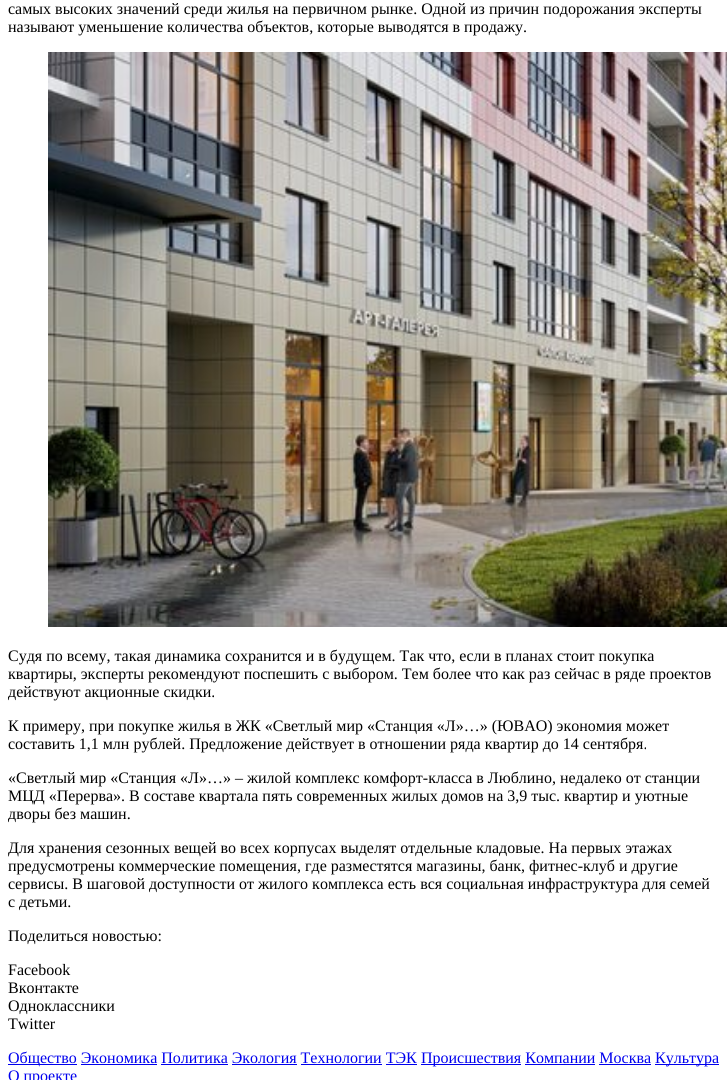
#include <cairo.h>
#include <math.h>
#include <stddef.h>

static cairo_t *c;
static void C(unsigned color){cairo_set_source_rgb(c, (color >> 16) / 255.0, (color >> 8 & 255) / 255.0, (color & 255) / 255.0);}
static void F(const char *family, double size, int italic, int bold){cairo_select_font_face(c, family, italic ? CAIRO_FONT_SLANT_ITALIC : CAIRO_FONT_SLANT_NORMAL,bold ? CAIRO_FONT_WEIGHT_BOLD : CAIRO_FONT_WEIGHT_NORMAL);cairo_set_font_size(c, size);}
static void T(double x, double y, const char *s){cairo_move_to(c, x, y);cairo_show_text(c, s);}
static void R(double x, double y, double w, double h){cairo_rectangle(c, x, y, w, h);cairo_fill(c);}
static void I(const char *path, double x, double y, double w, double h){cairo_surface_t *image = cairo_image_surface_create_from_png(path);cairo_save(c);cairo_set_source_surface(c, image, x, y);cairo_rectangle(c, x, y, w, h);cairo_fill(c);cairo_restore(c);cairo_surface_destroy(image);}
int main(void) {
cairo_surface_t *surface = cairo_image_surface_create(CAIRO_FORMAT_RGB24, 727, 1080);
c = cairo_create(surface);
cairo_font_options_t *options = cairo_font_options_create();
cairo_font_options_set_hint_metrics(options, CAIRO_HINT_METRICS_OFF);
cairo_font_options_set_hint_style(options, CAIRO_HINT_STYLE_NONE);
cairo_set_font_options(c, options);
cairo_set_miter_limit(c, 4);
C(0xffffff);
cairo_paint(c);
F("Liberation Serif",16,0,0);
C(0x000000);
T(8,14,"самых высоких значений среди жилья на первичном рынке. Одной из причин подорожания эксперты");
T(8,32,"называют уменьшение количества объектов, которые выводятся в продажу.");
I("1.png",48,52,679,575);
T(8,661,"Судя по всему, такая динамика сохранится и в будущем. Так что, если в планах стоит покупка");
T(8,679,"квартиры, эксперты рекомендуют поспешить с выбором. Тем более что как раз сейчас в ряде проектов");
T(8,697,"действуют акционные скидки.");
T(8,731,"К примеру, при покупке жилья в ЖК «Светлый мир «Станция «Л»…» (ЮВАО) экономия может");
T(8,749,"составить 1,1 млн рублей. Предложение действует в отношении ряда квартир до 14 сентября.");
T(8,783,"«Светлый мир «Станция «Л»…» – жилой комплекс комфорт-класса в Люблино, недалеко от станции");
T(8,801,"МЦД «Перерва». В составе квартала пять современных жилых домов на 3,9 тыс. квартир и уютные");
T(8,819,"дворы без машин.");
T(8,853,"Для хранения сезонных вещей во всех корпусах выделят отдельные кладовые. На первых этажах");
T(8,871,"предусмотрены коммерческие помещения, где разместятся магазины, банк, фитнес-клуб и другие");
T(8,889,"сервисы. В шаговой доступности от жилого комплекса есть вся социальная инфраструктура для семей");
T(8,907,"с детьми.");
T(8,941,"Поделиться новостью:");
T(8,975,"Facebook");
T(8,993,"Вконтакте");
T(8,1011,"Одноклассники");
T(8,1029,"Twitter");
C(0x0000ee);
R(8,1064,69,1);
T(8,1063,"Общество Экономика Политика Экология Технологии ТЭК");
R(421,1064,100,1);
T(421,1063,"Происшествия Компании Москва");
R(655,1064,64,1);
T(655,1063,"Культура");
R(81,1064,76,1);
R(161,1064,67,1);
R(232,1064,65,1);
R(301,1064,81,1);
R(386,1064,31,1);
R(525,1064,70,1);
R(599,1064,52,1);
T(8,1081,"О проекте");
cairo_surface_write_to_png(surface, "o.png");
cairo_font_options_destroy(options);
cairo_destroy(c);
cairo_surface_destroy(surface);
return 0;
}
